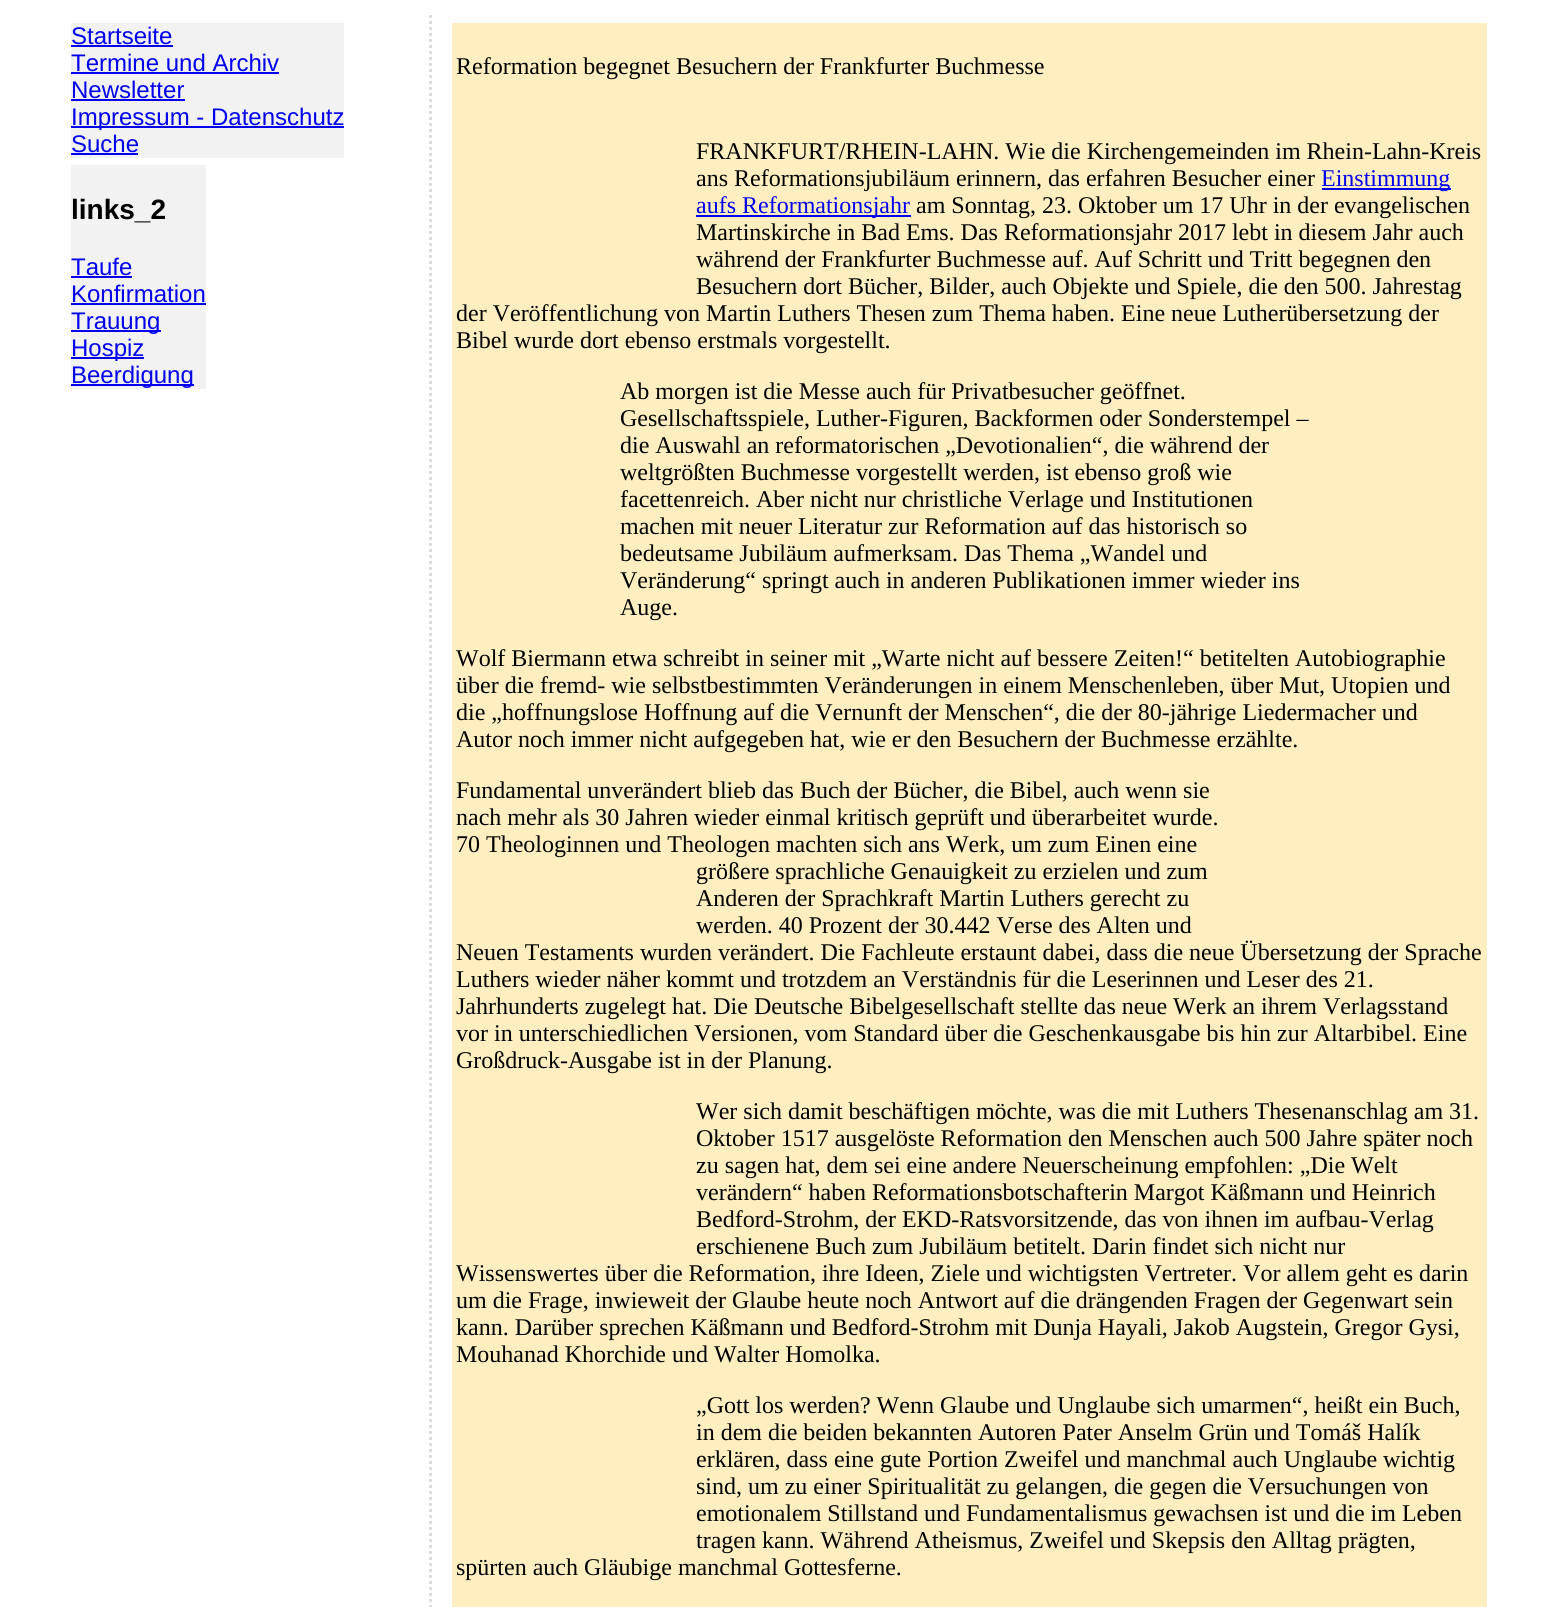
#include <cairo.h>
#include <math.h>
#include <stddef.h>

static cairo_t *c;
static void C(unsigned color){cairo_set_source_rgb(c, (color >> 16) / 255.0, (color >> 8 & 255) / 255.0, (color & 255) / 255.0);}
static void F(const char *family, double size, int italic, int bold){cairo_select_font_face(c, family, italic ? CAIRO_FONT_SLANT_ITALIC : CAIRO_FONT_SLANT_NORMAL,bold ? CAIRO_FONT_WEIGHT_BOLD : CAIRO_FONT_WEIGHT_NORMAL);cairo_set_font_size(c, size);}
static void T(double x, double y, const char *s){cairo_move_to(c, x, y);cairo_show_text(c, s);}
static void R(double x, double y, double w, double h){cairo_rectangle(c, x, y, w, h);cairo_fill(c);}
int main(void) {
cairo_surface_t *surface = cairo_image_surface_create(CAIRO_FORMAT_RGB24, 1557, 1607);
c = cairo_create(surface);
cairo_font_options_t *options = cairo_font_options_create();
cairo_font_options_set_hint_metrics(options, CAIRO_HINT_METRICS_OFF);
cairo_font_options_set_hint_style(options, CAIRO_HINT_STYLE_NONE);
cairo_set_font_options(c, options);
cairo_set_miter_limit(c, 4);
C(0xffffff);
cairo_paint(c);
cairo_new_path(c);
cairo_move_to(c,430.5,15);
cairo_line_to(c,430.5,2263.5);
C(0xdddddd);
cairo_set_line_width(c,3);
cairo_set_dash(c,(double[]){3,3},2,0);
cairo_stroke(c);
C(0xf2f2f2);
R(71,23,273,135);
F("Liberation Sans",24,0,0);
C(0x0000ee);
T(71,44,"Startseite");
R(71,45,102,2);
T(71,71,"Termine und Archiv");
R(71,72,208,2);
T(71,98,"Newsletter");
R(71,99,114,2);
R(71,126,273,2);
T(71,125,"Impressum - Datenschutz");
T(71,152,"Suche");
R(71,153,67,2);
C(0xf2f2f2);
R(71,165,135,224);
F("Liberation Sans",28,0,1);
C(0x000000);
T(71,219,"links_2");
F("Liberation Sans",24,0,0);
C(0x0000ee);
T(71,275,"Taufe");
R(71,276,61,2);
T(71,302,"Konfirmation");
R(71,303,135,2);
R(71,330,90,2);
T(71,329,"Trauung");
R(71,357,73,2);
T(71,356,"Hospiz");
R(71,384,123,2);
T(71,383,"Beerdigung");
C(0xffefc0);
R(452,23,1035,1584);
F("Liberation Serif",24,0,0);
C(0x000000);
T(456,74,"Reformation begegnet Besuchern der Frankfurter Buchmesse");
T(696,159,"FRANKFURT/RHEIN-LAHN. Wie die Kirchengemeinden im Rhein-Lahn-Kreis");
T(696,186,"ans Reformationsjubiläum erinnern, das erfahren Besucher einer");
C(0x0000ee);
R(1322,188,129,2);
T(1321,186,"Einstimmung");
R(696,215,215,2);
T(696,213,"aufs Reformationsjahr");
C(0x000000);
T(916,213,"am Sonntag, 23. Oktober um 17 Uhr in der evangelischen");
T(696,240,"Martinskirche in Bad Ems. Das Reformationsjahr 2017 lebt in diesem Jahr auch");
T(696,267,"während der Frankfurter Buchmesse auf. Auf Schritt und Tritt begegnen den");
T(696,294,"Besuchern dort Bücher, Bilder, auch Objekte und Spiele, die den 500. Jahrestag");
T(456,321,"der Veröffentlichung von Martin Luthers Thesen zum Thema haben. Eine neue Lutherübersetzung der");
T(456,348,"Bibel wurde dort ebenso erstmals vorgestellt.");
T(620,399,"Ab morgen ist die Messe auch für Privatbesucher geöffnet.");
T(620,426,"Gesellschaftsspiele, Luther-Figuren, Backformen oder Sonderstempel –");
T(620,453,"die Auswahl an reformatorischen „Devotionalien“, die während der");
T(620,480,"weltgrößten Buchmesse vorgestellt werden, ist ebenso groß wie");
T(620,507,"facettenreich. Aber nicht nur christliche Verlage und Institutionen");
T(620,534,"machen mit neuer Literatur zur Reformation auf das historisch so");
T(620,561,"bedeutsame Jubiläum aufmerksam. Das Thema „Wandel und");
T(620,588,"Veränderung“ springt auch in anderen Publikationen immer wieder ins");
T(620,615,"Auge.");
T(456,666,"Wolf Biermann etwa schreibt in seiner mit „Warte nicht auf bessere Zeiten!“ betitelten Autobiographie");
T(456,693,"über die fremd- wie selbstbestimmten Veränderungen in einem Menschenleben, über Mut, Utopien und");
T(456,720,"die „hoffnungslose Hoffnung auf die Vernunft der Menschen“, die der 80-jährige Liedermacher und");
T(456,747,"Autor noch immer nicht aufgegeben hat, wie er den Besuchern der Buchmesse erzählte.");
T(456,798,"Fundamental unverändert blieb das Buch der Bücher, die Bibel, auch wenn sie");
T(456,825,"nach mehr als 30 Jahren wieder einmal kritisch geprüft und überarbeitet wurde.");
T(456,852,"70 Theologinnen und Theologen machten sich ans Werk, um zum Einen eine");
T(696,879,"größere sprachliche Genauigkeit zu erzielen und zum");
T(696,906,"Anderen der Sprachkraft Martin Luthers gerecht zu");
T(696,933,"werden. 40 Prozent der 30.442 Verse des Alten und");
T(456,960,"Neuen Testaments wurden verändert. Die Fachleute erstaunt dabei, dass die neue Übersetzung der Sprache");
T(456,987,"Luthers wieder näher kommt und trotzdem an Verständnis für die Leserinnen und Leser des 21.");
T(456,1014,"Jahrhunderts zugelegt hat. Die Deutsche Bibelgesellschaft stellte das neue Werk an ihrem Verlagsstand");
T(456,1041,"vor in unterschiedlichen Versionen, vom Standard über die Geschenkausgabe bis hin zur Altarbibel. Eine");
T(456,1068,"Großdruck-Ausgabe ist in der Planung.");
T(696,1119,"Wer sich damit beschäftigen möchte, was die mit Luthers Thesenanschlag am 31.");
T(696,1146,"Oktober 1517 ausgelöste Reformation den Menschen auch 500 Jahre später noch");
T(696,1173,"zu sagen hat, dem sei eine andere Neuerscheinung empfohlen: „Die Welt");
T(696,1200,"verändern“ haben Reformationsbotschafterin Margot Käßmann und Heinrich");
T(696,1227,"Bedford-Strohm, der EKD-Ratsvorsitzende, das von ihnen im aufbau-Verlag");
T(696,1254,"erschienene Buch zum Jubiläum betitelt. Darin findet sich nicht nur");
T(456,1281,"Wissenswertes über die Reformation, ihre Ideen, Ziele und wichtigsten Vertreter. Vor allem geht es darin");
T(456,1308,"um die Frage, inwieweit der Glaube heute noch Antwort auf die drängenden Fragen der Gegenwart sein");
T(456,1335,"kann. Darüber sprechen Käßmann und Bedford-Strohm mit Dunja Hayali, Jakob Augstein, Gregor Gysi,");
T(456,1362,"Mouhanad Khorchide und Walter Homolka.");
T(696,1413,"„Gott los werden? Wenn Glaube und Unglaube sich umarmen“, heißt ein Buch,");
T(696,1440,"in dem die beiden bekannten Autoren Pater Anselm Grün und Tomáš Halík");
T(696,1467,"erklären, dass eine gute Portion Zweifel und manchmal auch Unglaube wichtig");
T(696,1494,"sind, um zu einer Spiritualität zu gelangen, die gegen die Versuchungen von");
T(696,1521,"emotionalem Stillstand und Fundamentalismus gewachsen ist und die im Leben");
T(696,1548,"tragen kann. Während Atheismus, Zweifel und Skepsis den Alltag prägten,");
T(456,1575,"spürten auch Gläubige manchmal Gottesferne.");
cairo_surface_write_to_png(surface, "o.png");
cairo_font_options_destroy(options);
cairo_destroy(c);
cairo_surface_destroy(surface);
return 0;
}
